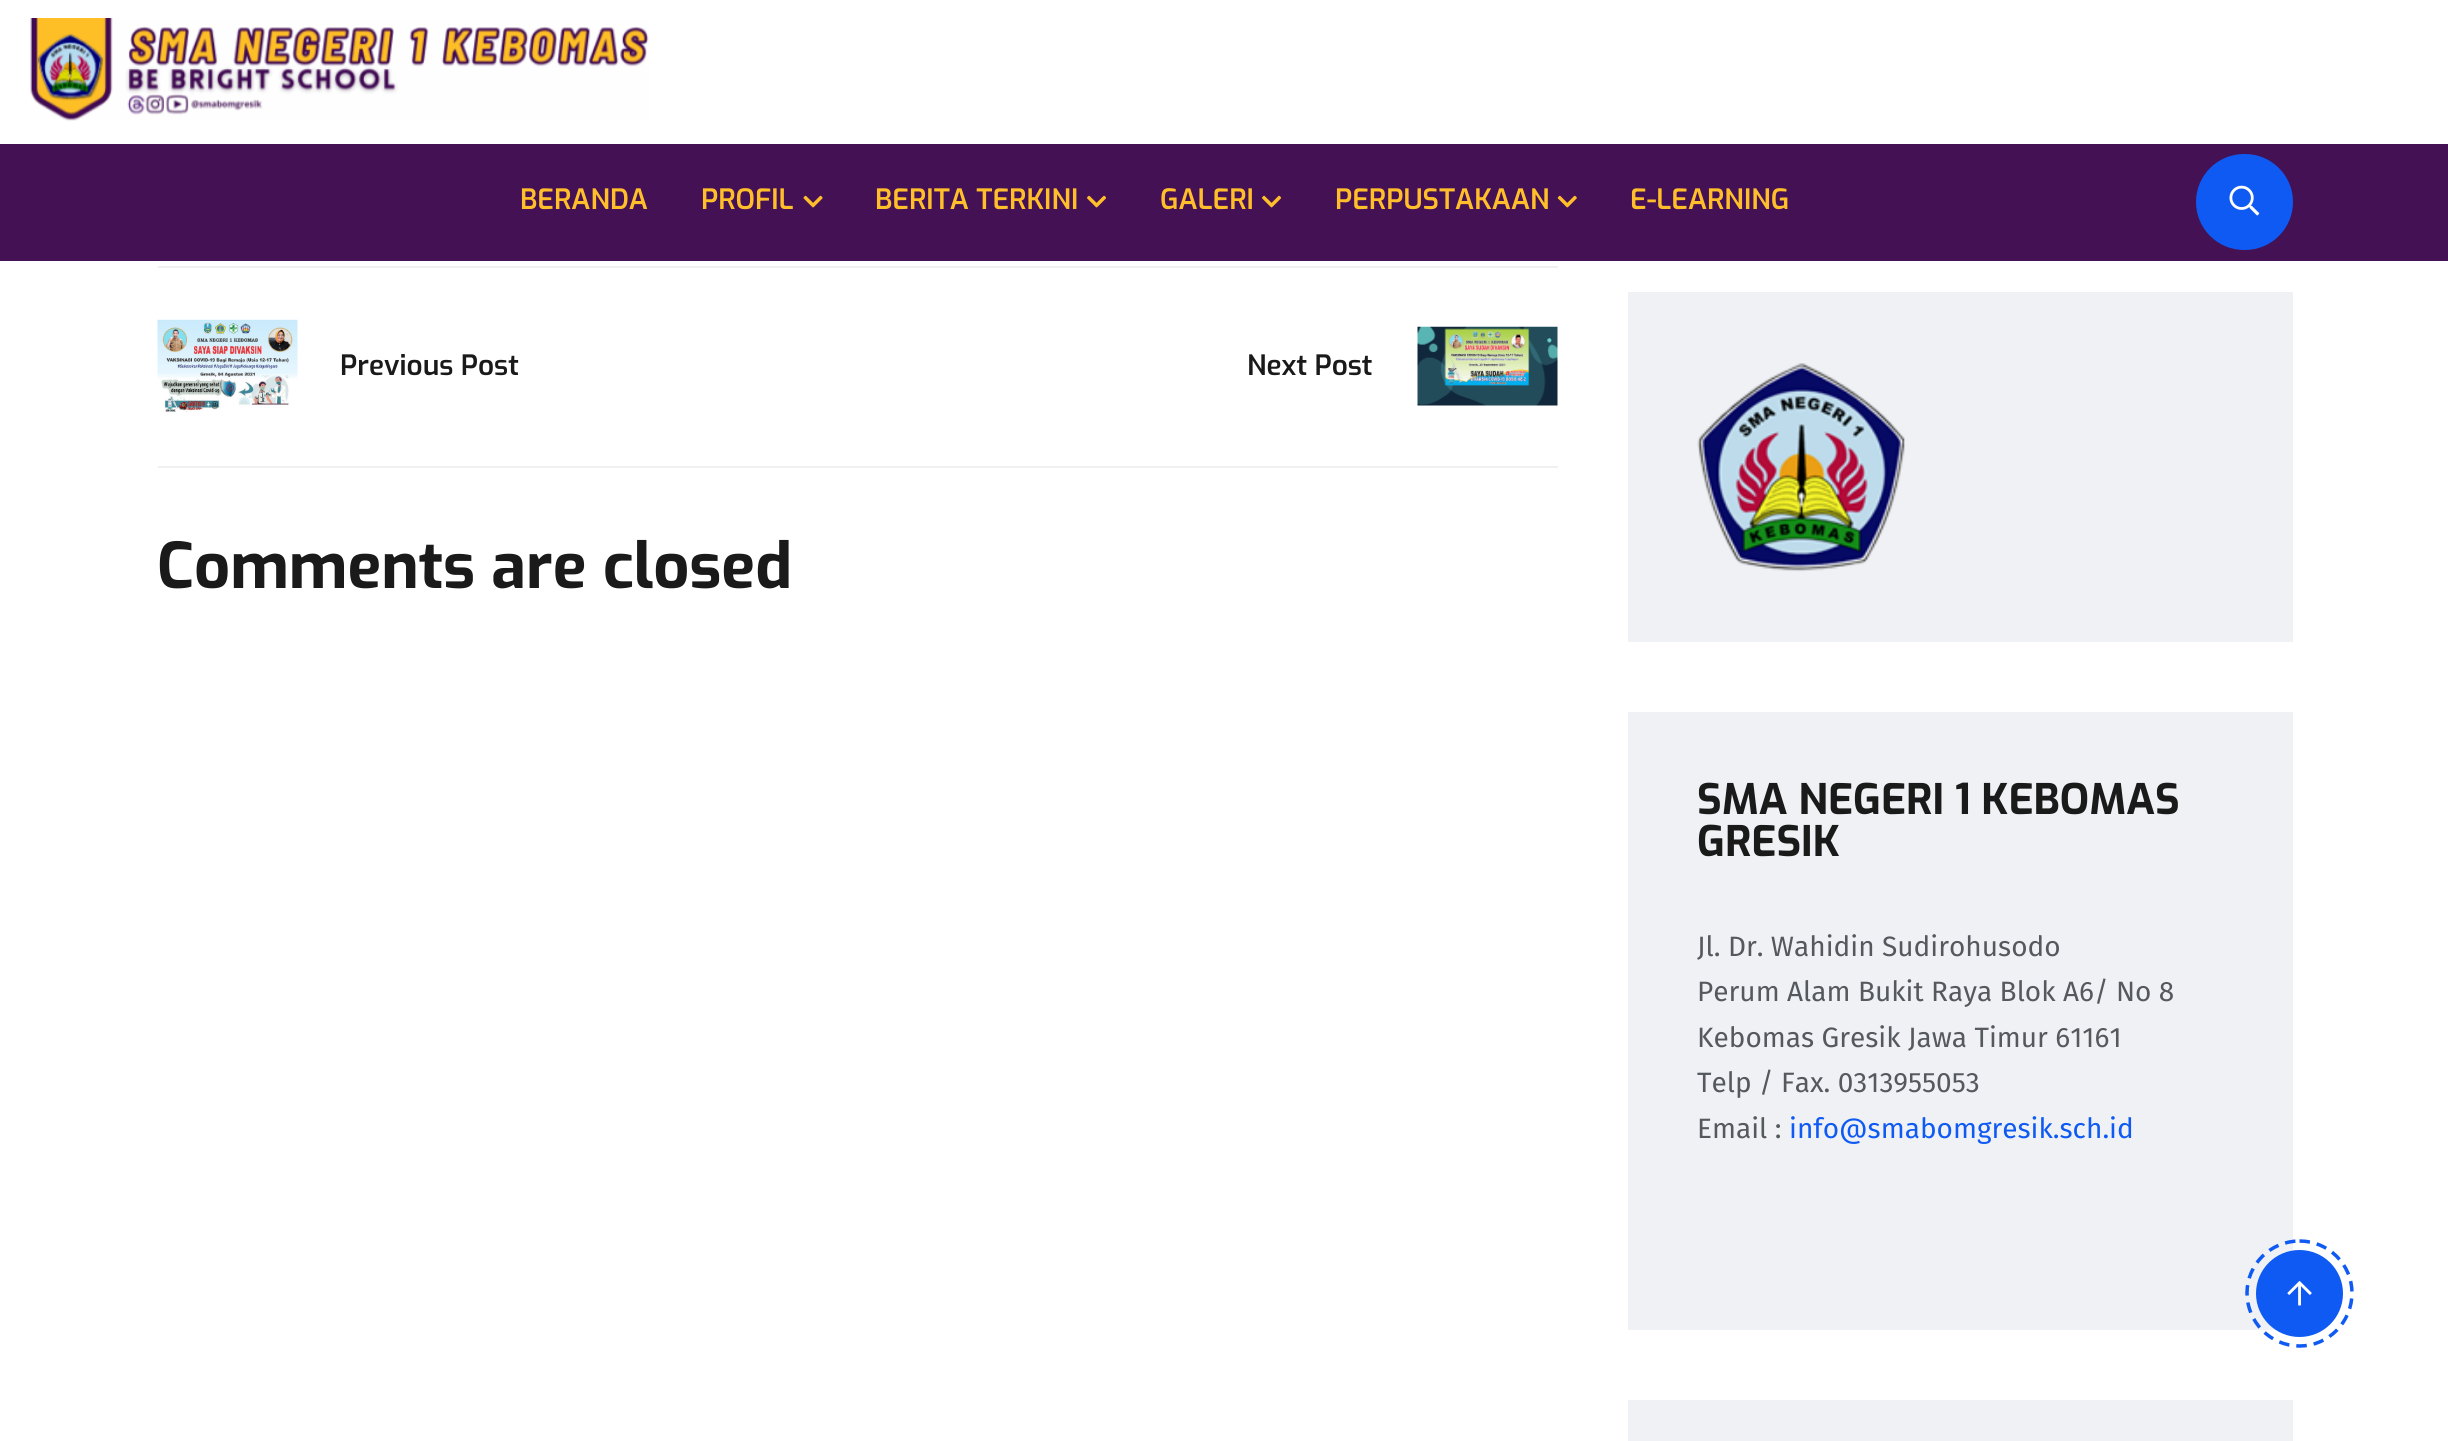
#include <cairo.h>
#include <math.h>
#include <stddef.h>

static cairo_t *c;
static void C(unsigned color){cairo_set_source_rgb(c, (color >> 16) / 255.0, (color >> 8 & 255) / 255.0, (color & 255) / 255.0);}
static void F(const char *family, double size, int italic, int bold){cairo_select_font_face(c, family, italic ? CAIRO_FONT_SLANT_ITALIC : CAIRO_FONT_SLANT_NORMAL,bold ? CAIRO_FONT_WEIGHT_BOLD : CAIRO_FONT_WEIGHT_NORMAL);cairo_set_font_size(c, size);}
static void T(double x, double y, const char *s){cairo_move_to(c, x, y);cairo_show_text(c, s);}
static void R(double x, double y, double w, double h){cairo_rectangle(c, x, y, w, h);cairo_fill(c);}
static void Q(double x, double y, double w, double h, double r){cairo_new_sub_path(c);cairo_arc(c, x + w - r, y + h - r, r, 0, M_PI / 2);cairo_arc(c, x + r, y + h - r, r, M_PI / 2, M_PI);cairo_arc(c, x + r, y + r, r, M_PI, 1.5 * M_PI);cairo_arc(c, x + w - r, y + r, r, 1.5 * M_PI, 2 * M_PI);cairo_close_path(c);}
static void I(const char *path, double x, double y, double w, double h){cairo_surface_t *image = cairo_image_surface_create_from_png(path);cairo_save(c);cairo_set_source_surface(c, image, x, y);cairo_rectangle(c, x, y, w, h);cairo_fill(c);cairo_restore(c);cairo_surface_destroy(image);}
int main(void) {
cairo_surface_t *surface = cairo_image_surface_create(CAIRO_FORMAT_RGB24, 2448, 1441);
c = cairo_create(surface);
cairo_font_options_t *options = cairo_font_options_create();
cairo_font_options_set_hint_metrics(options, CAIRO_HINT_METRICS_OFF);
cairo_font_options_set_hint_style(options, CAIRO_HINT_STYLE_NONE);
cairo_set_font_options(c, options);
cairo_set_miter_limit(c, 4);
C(0xffffff);
cairo_paint(c);
I("1.png",30,18,619,103);
C(0x431154);
R(0,144,2448,117);
F("Exo SemiBold",28,0,0);
C(0xffbe2a);
T(520,209,"BERANDA");
T(701,209,"PROFIL");
I("2.png",803,195,20,13);
T(875,209,"BERITA TERKINI");
I("3.png",1087,195,20,13);
T(1160,209,"GALERI");
I("3.png",1262,195,20,13);
T(1335,209,"PERPUSTAKAAN");
I("4.png",1557,195,20,13);
T(1630,209,"E-LEARNING");
C(0x0e5af2);
Q(2196,154,97,96,48);
cairo_fill(c);
I("5.png",2229,185,31,31);
C(0xf0f0f0);
R(158,266,1400,2);
R(158,466,1400,2);
I("6.png",157,319,141,94);
C(0x1a1a1a);
T(340,375,"Previous Post");
T(1247,375,"Next Post");
I("7.png",1417,326,141,80);
F("Exo",63,0,1);
T(157,588,"Comments are closed");
C(0xeff1f5);
R(1628,292,665,350);
I("8.png",1697,363,208,209);
R(1628,712,665,618);
F("Exo",42,0,1);
C(0x1a1a1a);
T(1697,814,"SMA NEGERI 1 KEBOMAS");
T(1697,856,"GRESIK");
F("Fira Sans",28,0,0);
C(0x55595d);
T(1697,956,"Jl. Dr. Wahidin Sudirohusodo");
T(1697,1001,"Perum Alam Bukit Raya Blok A6/ No 8");
T(1697,1047,"Kebomas Gresik Jawa Timur 61161");
T(1697,1092,"Telp / Fax. 0313955053");
T(1697,1138,"Email :");
C(0x0e5af2);
T(1789,1138,"info@smabomgresik.sch.id");
C(0xeff1f5);
R(1628,1400,665,41);
cairo_new_path(c);
cairo_move_to(c,2299.5,1241);
cairo_curve_to(c,2328.5,1241,2352,1264.5,2352,1293);
cairo_curve_to(c,2352,1322,2328.5,1346,2299.5,1346);
cairo_curve_to(c,2270.5,1346,2247,1322,2247,1293);
cairo_curve_to(c,2247,1264.5,2270.5,1241,2299.5,1241);
cairo_close_path(c);
C(0x0e5af2);
cairo_set_line_width(c,3.5);
cairo_set_dash(c,(double[]){10.5,7},2,0);
cairo_stroke(c);
cairo_arc(c,2299.5,1293.5,43.5,0,2 * M_PI);
cairo_fill(c);
I("9.png",2287,1281,25,25);
cairo_surface_write_to_png(surface, "o.png");
cairo_font_options_destroy(options);
cairo_destroy(c);
cairo_surface_destroy(surface);
return 0;
}
